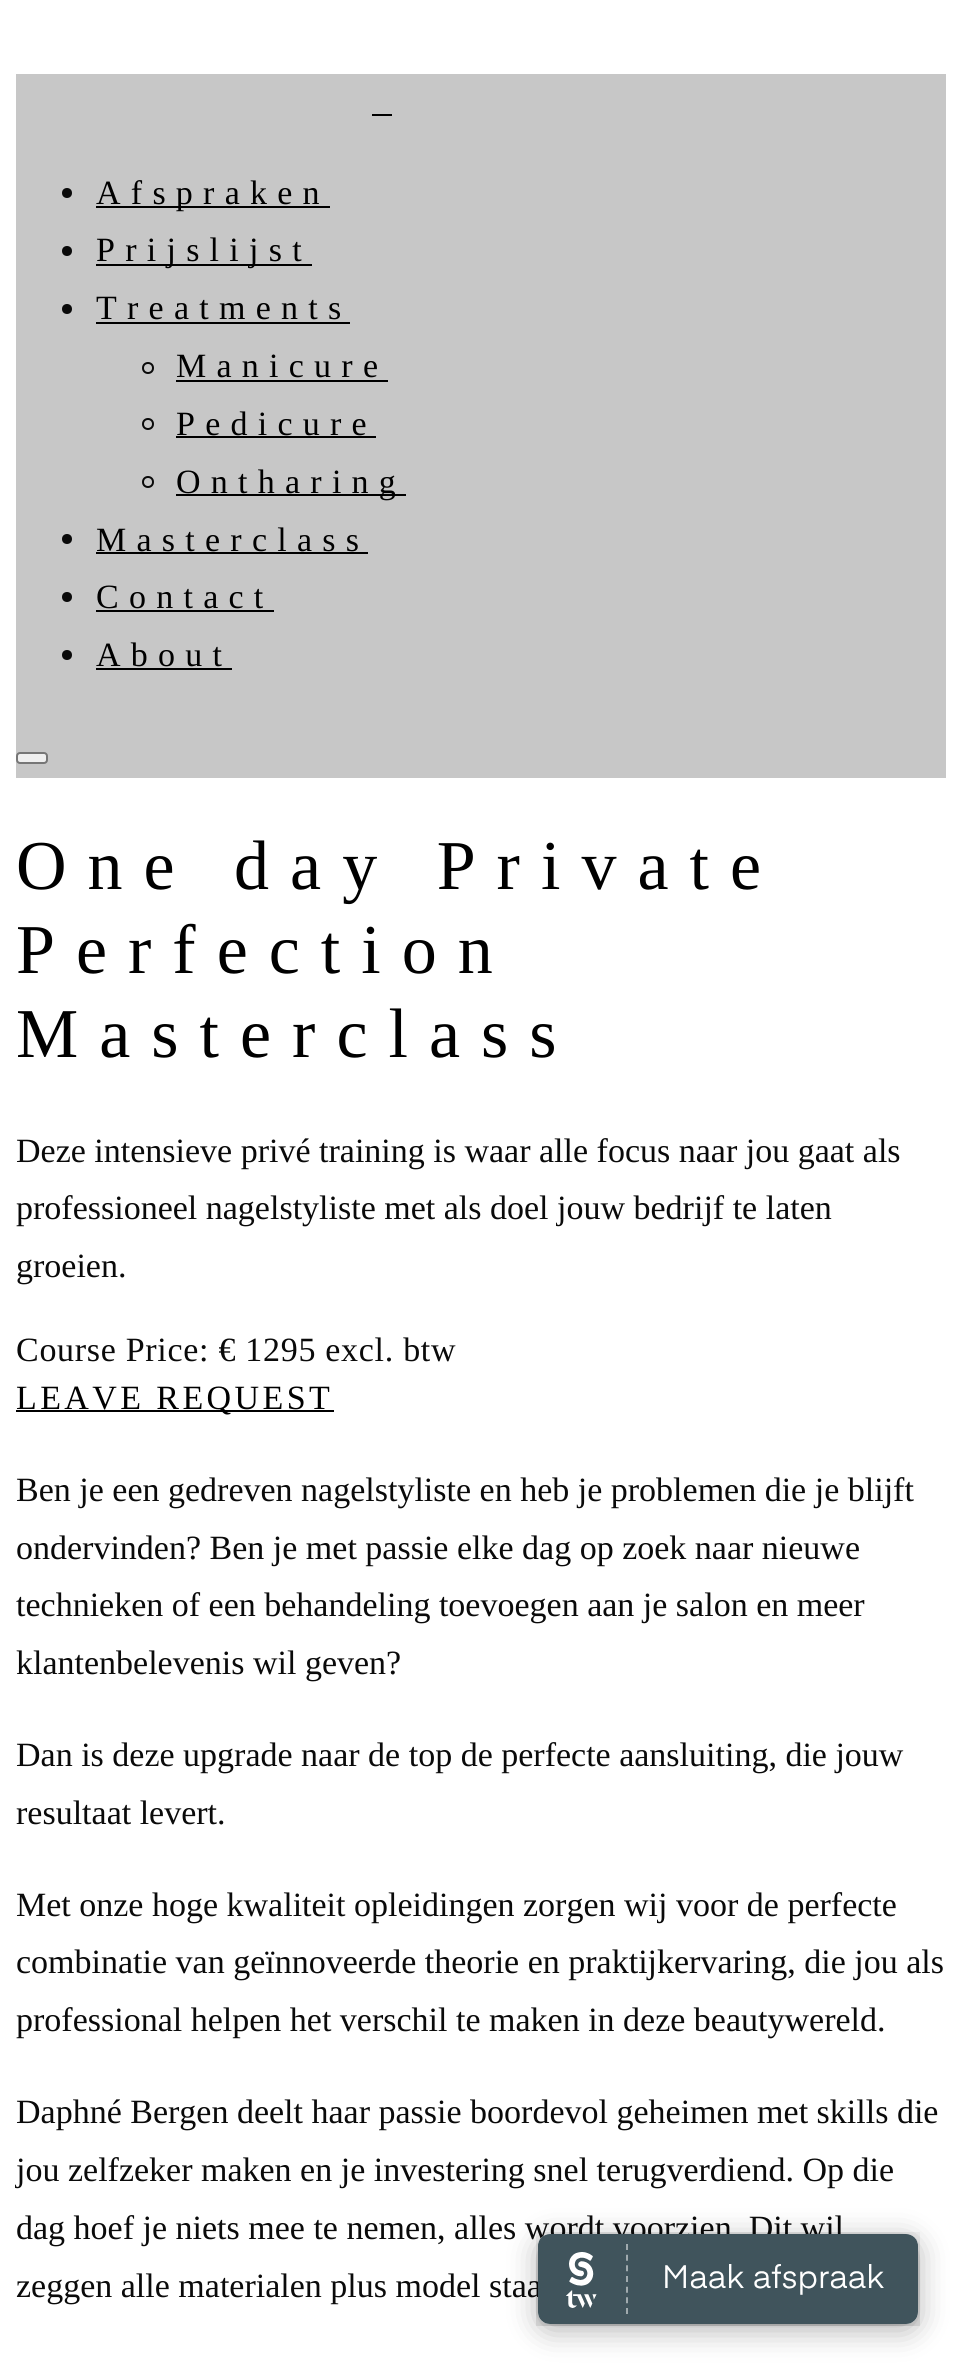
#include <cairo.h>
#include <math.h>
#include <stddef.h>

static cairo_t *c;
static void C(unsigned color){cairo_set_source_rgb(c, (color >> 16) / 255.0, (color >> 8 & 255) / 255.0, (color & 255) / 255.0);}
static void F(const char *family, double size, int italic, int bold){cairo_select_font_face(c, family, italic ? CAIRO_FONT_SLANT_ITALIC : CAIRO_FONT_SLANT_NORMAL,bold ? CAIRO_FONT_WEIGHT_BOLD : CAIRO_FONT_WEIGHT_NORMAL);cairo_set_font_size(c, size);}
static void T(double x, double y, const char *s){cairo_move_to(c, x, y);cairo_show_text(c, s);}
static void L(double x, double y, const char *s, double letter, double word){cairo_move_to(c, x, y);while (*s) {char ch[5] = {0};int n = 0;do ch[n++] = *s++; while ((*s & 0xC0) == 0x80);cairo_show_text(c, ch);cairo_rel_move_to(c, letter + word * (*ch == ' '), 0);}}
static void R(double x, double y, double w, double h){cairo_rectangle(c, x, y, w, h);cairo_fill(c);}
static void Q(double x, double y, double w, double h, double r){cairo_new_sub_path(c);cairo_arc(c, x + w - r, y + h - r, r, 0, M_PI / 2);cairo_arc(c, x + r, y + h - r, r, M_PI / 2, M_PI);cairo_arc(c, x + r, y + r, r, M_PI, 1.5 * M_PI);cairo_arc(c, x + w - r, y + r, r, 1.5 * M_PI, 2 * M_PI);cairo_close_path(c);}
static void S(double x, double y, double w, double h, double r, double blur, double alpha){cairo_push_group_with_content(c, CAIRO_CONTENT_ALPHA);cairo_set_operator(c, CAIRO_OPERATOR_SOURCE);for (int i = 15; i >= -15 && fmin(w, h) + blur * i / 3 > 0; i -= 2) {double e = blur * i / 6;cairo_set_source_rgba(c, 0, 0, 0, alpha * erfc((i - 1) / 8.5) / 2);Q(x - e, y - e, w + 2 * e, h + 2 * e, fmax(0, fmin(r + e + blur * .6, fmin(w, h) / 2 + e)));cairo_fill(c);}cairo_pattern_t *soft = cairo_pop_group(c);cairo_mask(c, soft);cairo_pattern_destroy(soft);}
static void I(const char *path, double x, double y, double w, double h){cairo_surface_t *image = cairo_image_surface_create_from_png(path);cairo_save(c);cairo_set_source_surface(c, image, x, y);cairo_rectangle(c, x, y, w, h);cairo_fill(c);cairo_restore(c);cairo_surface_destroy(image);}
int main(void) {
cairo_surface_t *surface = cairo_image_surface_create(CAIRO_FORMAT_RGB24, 961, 2367);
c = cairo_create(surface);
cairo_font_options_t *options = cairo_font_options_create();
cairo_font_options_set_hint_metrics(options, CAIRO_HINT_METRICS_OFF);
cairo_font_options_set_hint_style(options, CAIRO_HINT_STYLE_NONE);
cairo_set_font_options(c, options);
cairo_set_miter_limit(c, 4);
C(0xffffff);
cairo_paint(c);
C(0xc7c7c7);
R(16,74,930,704);
C(0x000000);
R(372,114,20,2);
C(0x0a0a0a);
cairo_arc(c,67,193,5,0,2 * M_PI);
cairo_fill(c);
C(0x000000);
R(96,206,234,2);
F("Liberation Serif",34,0,0);
L(96,204,"Afspraken",10.25,0);
C(0x0a0a0a);
cairo_new_path(c);
cairo_arc(c,67,251,5,0,2 * M_PI);
cairo_fill(c);
C(0x000000);
R(96,264,216,2);
L(96,261,"Prijslijst",10.25,0);
C(0x0a0a0a);
cairo_new_path(c);
cairo_arc(c,67,309,5,0,2 * M_PI);
cairo_fill(c);
C(0x000000);
L(96,319,"Treatments",10.25,0);
R(96,322,254,2);
cairo_new_path(c);
cairo_arc(c,148,368,5,0,2 * M_PI);
C(0x0a0a0a);
cairo_stroke(c);
C(0x000000);
L(176,377,"Manicure",10.25,0);
R(176,380,212,2);
cairo_new_path(c);
cairo_arc(c,148,424,5,0,2 * M_PI);
C(0x0a0a0a);
cairo_stroke(c);
C(0x000000);
L(176,435,"Pedicure",10.25,0);
R(176,436,200,2);
cairo_new_path(c);
cairo_arc(c,148,482,5,0,2 * M_PI);
C(0x0a0a0a);
cairo_stroke(c);
C(0x000000);
R(176,494,230,2);
L(176,493,"Ontharing",10.25,0);
C(0x0a0a0a);
cairo_new_path(c);
cairo_arc(c,67,539,5,0,2 * M_PI);
cairo_fill(c);
C(0x000000);
L(96,551,"Masterclass",10.25,0);
R(96,552,272,2);
C(0x0a0a0a);
cairo_new_path(c);
cairo_arc(c,67,597,5,0,2 * M_PI);
cairo_fill(c);
C(0x000000);
L(96,608,"Contact",10.25,0);
R(96,610,178,2);
C(0x0a0a0a);
cairo_new_path(c);
cairo_arc(c,67,655,5,0,2 * M_PI);
cairo_fill(c);
C(0x000000);
L(96,666,"About",10.25,0);
R(96,668,136,2);
C(0xefefef);
Q(17,753,30,10,3);
cairo_fill_preserve(c);
C(0x767676);
cairo_stroke(c);
F("Liberation Serif",70,0,0);
C(0x000000);
L(16,889,"One day Private",21,0);
L(16,973,"Perfection",21,0);
L(16,1057,"Masterclass",21,0);
F("Liberation Serif",34,0,0);
C(0x0a0a0a);
T(16,1162,"Deze intensieve privé training is waar alle focus naar jou gaat als");
T(16,1219,"professioneel nagelstyliste met als doel jouw bedrijf te laten");
T(16,1277,"groeien.");
L(16,1361,"Course Price: € 1295 excl. btw",.7,0);
C(0x000000);
R(16,1410,318,2);
L(16,1409,"LEAVE REQUEST",3.4,0);
C(0x0a0a0a);
T(16,1501,"Ben je een gedreven nagelstyliste en heb je problemen die je blijft");
T(16,1559,"ondervinden? Ben je met passie elke dag op zoek naar nieuwe");
T(16,1616,"technieken of een behandeling toevoegen aan je salon en meer");
T(16,1674,"klantenbelevenis wil geven?");
T(16,1766,"Dan is deze upgrade naar de top de perfecte aansluiting, die jouw");
T(16,1824,"resultaat levert.");
T(16,1916,"Met onze hoge kwaliteit opleidingen zorgen wij voor de perfecte");
T(16,1973,"combinatie van geïnnoveerde theorie en praktijkervaring, die jou als");
T(16,2031,"professional helpen het verschil te maken in deze beautywereld.");
T(16,2123,"Daphné Bergen deelt haar passie boordevol geheimen met skills die");
T(16,2181,"jou zelfzeker maken en je investering snel terugverdiend. Op die");
T(16,2239,"dag hoef je niets mee te nemen, alles wordt voorzien. Dit wil");
T(16,2297,"zeggen alle materialen plus model staa");
C(0x000000);
S(538,2240,380,90,12,15,.3);
I("1.png",536,2232,384,94);
cairo_surface_write_to_png(surface, "o.png");
cairo_font_options_destroy(options);
cairo_destroy(c);
cairo_surface_destroy(surface);
return 0;
}
